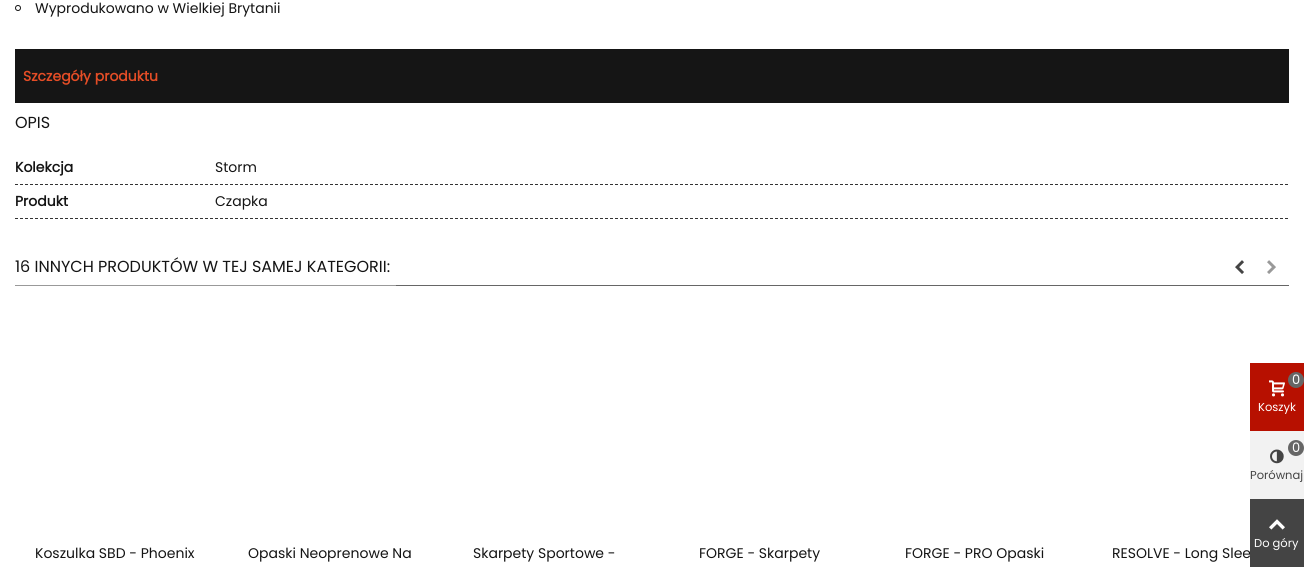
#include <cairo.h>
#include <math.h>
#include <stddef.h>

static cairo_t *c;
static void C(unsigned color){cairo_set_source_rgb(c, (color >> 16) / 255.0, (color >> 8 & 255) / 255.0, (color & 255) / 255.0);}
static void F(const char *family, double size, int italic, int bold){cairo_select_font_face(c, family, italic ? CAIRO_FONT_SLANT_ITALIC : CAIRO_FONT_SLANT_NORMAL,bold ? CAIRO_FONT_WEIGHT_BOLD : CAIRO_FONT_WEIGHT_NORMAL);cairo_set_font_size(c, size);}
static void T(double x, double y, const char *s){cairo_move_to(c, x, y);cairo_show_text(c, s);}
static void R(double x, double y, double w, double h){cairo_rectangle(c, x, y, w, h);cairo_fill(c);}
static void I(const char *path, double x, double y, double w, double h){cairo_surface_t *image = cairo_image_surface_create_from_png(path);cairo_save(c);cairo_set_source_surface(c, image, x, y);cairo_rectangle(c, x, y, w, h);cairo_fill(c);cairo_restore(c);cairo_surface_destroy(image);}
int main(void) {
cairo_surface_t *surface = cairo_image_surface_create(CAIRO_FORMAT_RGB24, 1304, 567);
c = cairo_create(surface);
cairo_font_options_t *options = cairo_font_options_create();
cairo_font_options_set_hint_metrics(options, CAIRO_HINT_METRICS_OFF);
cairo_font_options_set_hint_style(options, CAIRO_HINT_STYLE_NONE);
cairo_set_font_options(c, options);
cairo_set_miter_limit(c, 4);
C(0xffffff);
cairo_paint(c);
C(0x151515);
R(15,49,1274,54);
cairo_arc(c,18,8,2.5,0,2 * M_PI);
C(0x141414);
cairo_set_line_width(c,1);
cairo_stroke(c);
F("Poppins",14,0,0);
T(35,13,"Wyprodukowano w Wielkiej Brytanii");
F("Poppins",14,0,1);
C(0xe54d26);
T(23,81,"Szczegóły produktu");
F("Poppins",16,0,0);
C(0x141414);
T(15,128,"OPIS");
cairo_new_path(c);
cairo_move_to(c,15,184.5);
cairo_line_to(c,1289,184.5);
C(0x333333);
cairo_set_dash(c,(double[]){3,2},2,0);
cairo_stroke(c);
F("Poppins",14,0,1);
C(0x141414);
T(15,172,"Kolekcja");
F("Poppins",14,0,0);
T(215,172,"Storm");
cairo_new_path(c);
cairo_move_to(c,15,218.5);
cairo_line_to(c,1289,218.5);
C(0x333333);
cairo_stroke(c);
F("Poppins",14,0,1);
C(0x141414);
T(15,206,"Produkt");
F("Poppins",14,0,0);
T(215,206,"Czapka");
C(0x666666);
R(396,285,893,1);
C(0x999999);
R(15,285,381,1);
F("Poppins",16,0,0);
C(0x141414);
T(15,272,"16 INNYCH PRODUKTÓW W TEJ SAMEJ KATEGORII:");
I("1.png",1235,260,9,14);
I("2.png",1267,260,9,14);
F("Poppins",14,0,0);
T(35,558,"Koszulka SBD - Phoenix");
T(248,558,"Opaski Neoprenowe Na");
T(473,558,"Skarpety Sportowe -");
T(699,558,"FORGE - Skarpety");
T(905,558,"FORGE - PRO Opaski");
T(1112,558,"RESOLVE - Long Slee");
C(0x444444);
R(1250,499,54,68);
C(0xb71000);
R(1250,363,54,68);
C(0x666666);
cairo_new_path(c);
cairo_arc(c,1296,380,8,0,2 * M_PI);
cairo_fill(c);
F("Poppins",13,0,0);
C(0xffffff);
T(1292,384,"0");
I("3.png",1269,380,16,17);
F("Poppins",11.5,0,0);
T(1258,411,"Koszyk");
C(0xf2f2f2);
R(1250,431,54,68);
C(0x666666);
cairo_new_path(c);
cairo_arc(c,1296,448,8,0,2 * M_PI);
cairo_fill(c);
F("Poppins",13,0,0);
C(0xffffff);
T(1292,452,"0");
I("4.png",1270,449,14,15);
F("Poppins",11.5,0,0);
C(0x444444);
T(1250,479,"Porównaj");
I("5.png",1269,519,16,11);
C(0xffffff);
T(1254,547,"Do góry");
cairo_surface_write_to_png(surface, "o.png");
cairo_font_options_destroy(options);
cairo_destroy(c);
cairo_surface_destroy(surface);
return 0;
}
